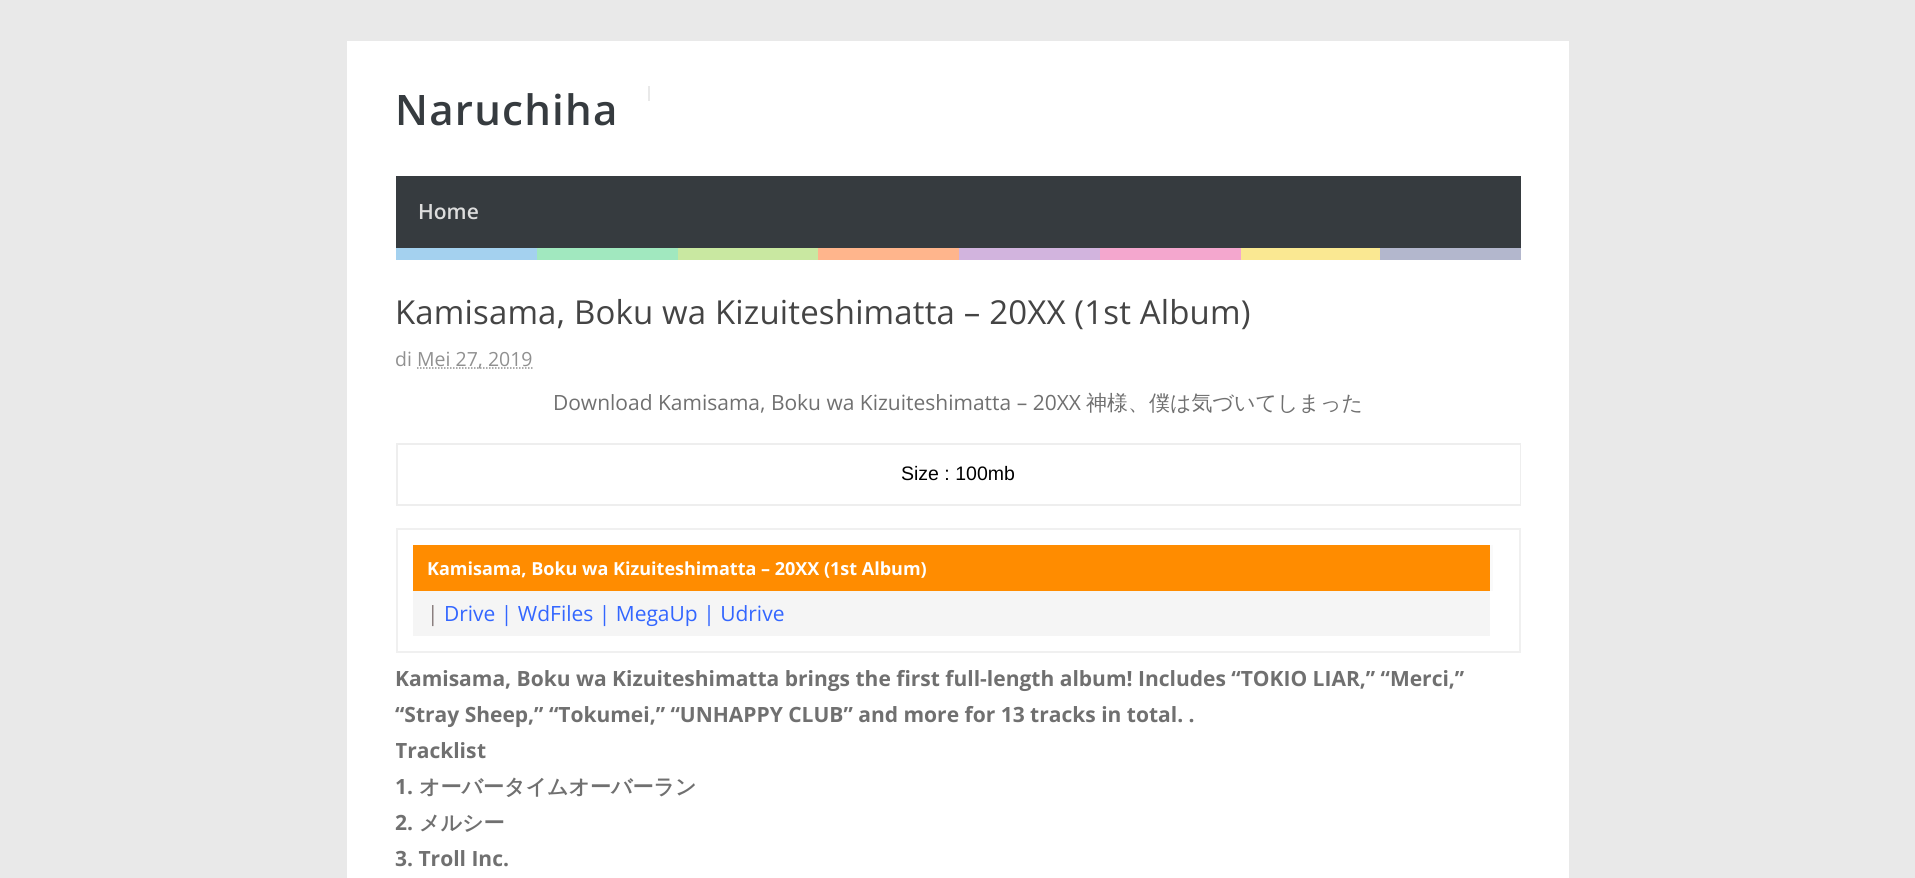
#include <cairo.h>
#include <math.h>
#include <stddef.h>

static cairo_t *c;
static void C(unsigned color){cairo_set_source_rgb(c, (color >> 16) / 255.0, (color >> 8 & 255) / 255.0, (color & 255) / 255.0);}
static void F(const char *family, double size, int italic, int bold){cairo_select_font_face(c, family, italic ? CAIRO_FONT_SLANT_ITALIC : CAIRO_FONT_SLANT_NORMAL,bold ? CAIRO_FONT_WEIGHT_BOLD : CAIRO_FONT_WEIGHT_NORMAL);cairo_set_font_size(c, size);}
static void T(double x, double y, const char *s){cairo_move_to(c, x, y);cairo_show_text(c, s);}
static void L(double x, double y, const char *s, double letter, double word){cairo_move_to(c, x, y);while (*s) {char ch[5] = {0};int n = 0;do ch[n++] = *s++; while ((*s & 0xC0) == 0x80);cairo_show_text(c, ch);cairo_rel_move_to(c, letter + word * (*ch == ' '), 0);}}
static void R(double x, double y, double w, double h){cairo_rectangle(c, x, y, w, h);cairo_fill(c);}
int main(void) {
cairo_surface_t *surface = cairo_image_surface_create(CAIRO_FORMAT_RGB24, 1915, 878);
c = cairo_create(surface);
cairo_font_options_t *options = cairo_font_options_create();
cairo_font_options_set_hint_metrics(options, CAIRO_HINT_METRICS_OFF);
cairo_font_options_set_hint_style(options, CAIRO_HINT_STYLE_NONE);
cairo_set_font_options(c, options);
cairo_set_miter_limit(c, 4);
C(0xe9e9e9);
cairo_paint(c);
C(0xffffff);
R(347,41,1222,837);
F("Open Sans SemiBold",42,0,0);
C(0x363b3f);
L(395,125,"Naruchiha",1.25,0);
C(0xe9e9e9);
R(648,86,2,15);
C(0x363b3f);
R(396,176,1125,72);
F("Open Sans SemiBold",21,0,0);
C(0xdddddd);
T(418,219,"Home");
C(0xa4d1ef);
R(396,248,141,12);
C(0xa1e8bf);
R(537,248,141,12);
C(0xc9e8a1);
R(678,248,140,12);
C(0xffb58c);
R(818,248,141,12);
C(0xd2b4de);
R(959,248,141,12);
C(0xf4a7ce);
R(1100,248,141,12);
C(0xfae892);
R(1241,248,139,12);
C(0xb3b7cd);
R(1380,248,141,12);
F("Open Sans",33,0,0);
C(0x444444);
L(395,324,"Kamisama, Boku wa Kizuiteshimatta – 20XX (1st Album)",.15,0);
F("Open Sans",19.5,0,0);
C(0x909090);
T(395,366,"di");
cairo_new_path(c);
cairo_move_to(c,417,368);
cairo_line_to(c,532.5,368);
cairo_set_line_width(c,1.5);
cairo_set_dash(c,(double[]){1.5,1.5},2,0);
cairo_stroke(c);
T(417,366,"Mei 27, 2019");
F("Open Sans",21,0,0);
C(0x707070);
T(553,410,"Download Kamisama, Boku wa Kizuiteshimatta – 20XX");
F("WenQuanYi Zen Hei Medium",21,0,0);
T(1086,410,"神様、僕は気づいてしまった");
C(0xeeeeee);
R(396,443,1125,2);
R(1520,443,1,63);
R(396,504,1125,2);
R(396,443,2,63);
F("Liberation Sans",19.5,0,0);
C(0x000000);
T(901,480,"Size : 100mb");
cairo_rectangle(c,397,529,1123,123);
C(0xf0f0f0);
cairo_set_line_width(c,2);
cairo_set_dash(c,NULL,0,0);
cairo_stroke(c);
C(0xff8c00);
R(413,545,1077,46);
C(0xfafafa);
R(1490,545,3,46);
F("Open Sans",18,0,1);
C(0xffffff);
T(427,575,"Kamisama, Boku wa Kizuiteshimatta – 20XX (1st Album)");
C(0xf5f5f5);
R(413,591,1077,45);
F("Open Sans",21,0,0);
C(0x857979);
T(427,621,"|");
C(0x3366ff);
T(444,621,"Drive | WdFiles | MegaUp | Udrive");
F("Open Sans",21,0,1);
C(0x707070);
T(395,686,"Kamisama, Boku wa Kizuiteshimatta brings the first full-length album! Includes “TOKIO LIAR,” “Merci,”");
T(395,722,"“Stray Sheep,” “Tokumei,” “UNHAPPY CLUB” and more for 13 tracks in total. .");
cairo_save(c);
cairo_rectangle(c,396,290,1125,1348);
cairo_clip(c);
T(395,758,"Tracklis");
cairo_restore(c);
T(477,758,"t");
T(395,794,"1.");
F("WenQuanYi Zen Hei",21,0,1);
T(419,794,"オーバータイムオーバーラン");
F("Open Sans",21,0,1);
T(395,830,"2.");
F("WenQuanYi Zen Hei",21,0,1);
T(419,830,"メルシー");
F("Open Sans",21,0,1);
T(395,866,"3. Troll Inc.");
cairo_surface_write_to_png(surface, "o.png");
cairo_font_options_destroy(options);
cairo_destroy(c);
cairo_surface_destroy(surface);
return 0;
}
